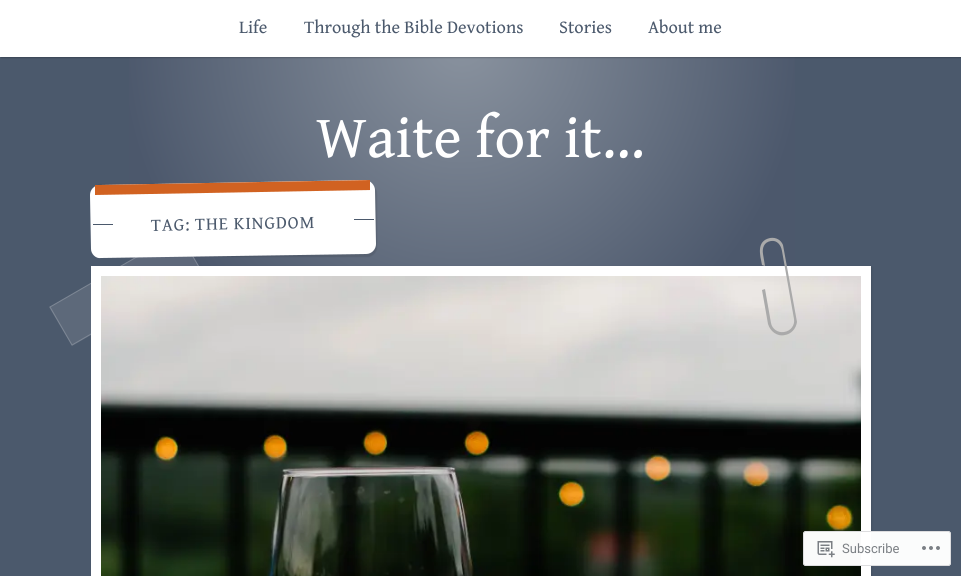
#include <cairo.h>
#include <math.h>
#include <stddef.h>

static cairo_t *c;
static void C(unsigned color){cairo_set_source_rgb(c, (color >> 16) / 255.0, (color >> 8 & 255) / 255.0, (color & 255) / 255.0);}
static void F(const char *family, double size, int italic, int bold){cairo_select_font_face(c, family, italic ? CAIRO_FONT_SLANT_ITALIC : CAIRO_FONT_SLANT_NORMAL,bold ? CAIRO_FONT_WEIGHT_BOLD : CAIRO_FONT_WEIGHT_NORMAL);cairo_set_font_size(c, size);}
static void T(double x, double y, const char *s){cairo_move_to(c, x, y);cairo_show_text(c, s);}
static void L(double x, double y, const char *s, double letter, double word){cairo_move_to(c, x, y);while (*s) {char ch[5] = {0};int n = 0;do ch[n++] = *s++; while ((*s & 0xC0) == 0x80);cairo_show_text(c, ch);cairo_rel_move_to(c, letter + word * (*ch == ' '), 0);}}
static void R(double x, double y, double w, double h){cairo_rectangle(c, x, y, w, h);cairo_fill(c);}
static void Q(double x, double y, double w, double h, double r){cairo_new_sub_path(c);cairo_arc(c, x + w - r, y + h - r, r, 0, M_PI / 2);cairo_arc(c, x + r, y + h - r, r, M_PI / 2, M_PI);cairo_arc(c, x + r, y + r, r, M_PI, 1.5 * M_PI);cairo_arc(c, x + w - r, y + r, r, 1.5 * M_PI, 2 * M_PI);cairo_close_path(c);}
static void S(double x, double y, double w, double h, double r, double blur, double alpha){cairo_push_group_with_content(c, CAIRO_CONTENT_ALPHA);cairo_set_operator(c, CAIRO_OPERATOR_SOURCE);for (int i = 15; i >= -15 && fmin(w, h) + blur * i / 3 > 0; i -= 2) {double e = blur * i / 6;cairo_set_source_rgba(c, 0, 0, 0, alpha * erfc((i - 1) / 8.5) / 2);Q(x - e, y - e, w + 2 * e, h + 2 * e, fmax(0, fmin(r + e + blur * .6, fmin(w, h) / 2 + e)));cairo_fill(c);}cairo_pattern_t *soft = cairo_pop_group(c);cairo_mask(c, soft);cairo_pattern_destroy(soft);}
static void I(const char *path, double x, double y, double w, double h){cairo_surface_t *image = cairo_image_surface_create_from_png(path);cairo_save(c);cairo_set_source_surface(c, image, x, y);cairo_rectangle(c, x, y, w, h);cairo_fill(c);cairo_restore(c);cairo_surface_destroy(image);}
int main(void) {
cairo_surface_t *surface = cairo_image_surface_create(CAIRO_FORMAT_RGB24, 961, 576);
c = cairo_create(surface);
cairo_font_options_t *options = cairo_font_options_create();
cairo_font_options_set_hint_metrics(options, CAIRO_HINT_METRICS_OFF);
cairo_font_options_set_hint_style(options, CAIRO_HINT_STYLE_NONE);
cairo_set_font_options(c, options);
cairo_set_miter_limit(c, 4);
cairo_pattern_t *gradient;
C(0x4b596c);
cairo_paint(c);
gradient = cairo_pattern_create_radial(0,0,0,0,0,1);
cairo_pattern_set_matrix(gradient, &(cairo_matrix_t){1.0 / 680, 0, 0, 1.0 / 707, -1.0 * 462 / 680, -1.0 * 40 / 707});
cairo_pattern_add_color_stop_rgba(gradient,0,0.541,0.576,0.624,1);
cairo_pattern_add_color_stop_rgba(gradient,.5,0.298,0.345,0.424,1);
cairo_pattern_add_color_stop_rgba(gradient,1,0.298,0.345,0.424,1);
cairo_set_source(c,gradient);
cairo_pattern_destroy(gradient);
R(129,57,666,328);
C(0x000000);
S(1,1,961,57,0,.5,.2);
C(0xffffff);
R(0,0,961,57);
F("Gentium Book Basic",18.25,0,0);
C(0x4b596c);
T(239,33,"Life");
T(304,33,"Through the Bible Devotions");
T(559,33,"Stories");
T(648,33,"About me");
F("Gentium Book Basic",60,0,0);
C(0xffffff);
T(316,157,"Waite for it…");
C(0x000000);
S(92,184,285,73,10,.5,.1);
C(0xffffff);
cairo_new_path(c);
cairo_move_to(c,100,185);
cairo_line_to(c,365,180);
cairo_curve_to(c,370,180,375,185,375,190);
cairo_line_to(c,376,244);
cairo_curve_to(c,376,249,372,254,366,254);
cairo_line_to(c,101,258);
cairo_curve_to(c,96,259,91,254,91,249);
cairo_line_to(c,90,195);
cairo_curve_to(c,90,190,94,185,100,185);
cairo_close_path(c);
cairo_fill(c);
C(0xd16221);
cairo_new_path(c);
cairo_move_to(c,95,185);
cairo_line_to(c,370,180);
cairo_line_to(c,370,190);
cairo_line_to(c,95,195);
cairo_close_path(c);
cairo_fill(c);
F("Gentium Book Basic",18,0,0);
C(0x4b596c);
cairo_save(c);
cairo_translate(c,151,231);
cairo_rotate(c,-1 * M_PI / 180);
L(0,0,"TAG:",.9,0);
cairo_restore(c);
cairo_save(c);
cairo_translate(c,195,230);
cairo_rotate(c,-1 * M_PI / 180);
L(0,0,"THE KINGDOM",.9,0);
cairo_restore(c);
R(354,219,20,1);
R(93,224,20,1);
C(0x000000);
S(92,267,780,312,0,1,.1);
C(0xffffff);
R(91,266,780,310);
cairo_set_source_rgba(c,1,1,1,0.1);
cairo_new_path(c);
cairo_move_to(c,49,307);
cairo_line_to(c,179,232);
cairo_line_to(c,202,271);
cairo_line_to(c,72,346);
cairo_close_path(c);
cairo_fill(c);
cairo_new_path(c);
cairo_move_to(c,50,307);
cairo_line_to(c,179,232.5);
cairo_line_to(c,201,270.5);
cairo_line_to(c,72,345);
cairo_close_path(c);
cairo_set_source_rgba(c,1,1,1,0.2);
cairo_set_line_width(c,1);
cairo_stroke(c);
I("1.png",101,276,760,300);
C(0xaaaaaa);
cairo_new_path(c);
cairo_move_to(c,770,238);
cairo_curve_to(c,776,237,781,240,783,245);
cairo_line_to(c,797,322);
cairo_curve_to(c,796,329,791,334,785,335);
cairo_curve_to(c,777,337,770,331,768,324);
cairo_line_to(c,762,290);
cairo_line_to(c,765,289);
cairo_line_to(c,771,323);
cairo_curve_to(c,772,329,778,333,784,332);
cairo_curve_to(c,791,331,795,325,794,319);
cairo_line_to(c,782,251);
cairo_curve_to(c,781,245,777,240,771,241);
cairo_curve_to(c,764,242,762,248,763,254);
cairo_line_to(c,765,266);
cairo_line_to(c,762,265);
cairo_curve_to(c,760,255,756,241,770,238);
cairo_close_path(c);
cairo_fill(c);
cairo_set_source_rgba(c,1,1,1,0.98);
Q(803,531,148,35,3);
cairo_fill(c);
Q(803.5,531.5,147,34,2.5);
cairo_set_source_rgba(c,0.863,0.863,0.871,0.98);
cairo_stroke(c);
I("2.png",817,541,18,17);
F("Roboto",13,0,0);
C(0x7b7f84);
T(842,553,"Subscribe");
I("3.png",922,546,18,4);
cairo_surface_write_to_png(surface, "o.png");
cairo_font_options_destroy(options);
cairo_destroy(c);
cairo_surface_destroy(surface);
return 0;
}
